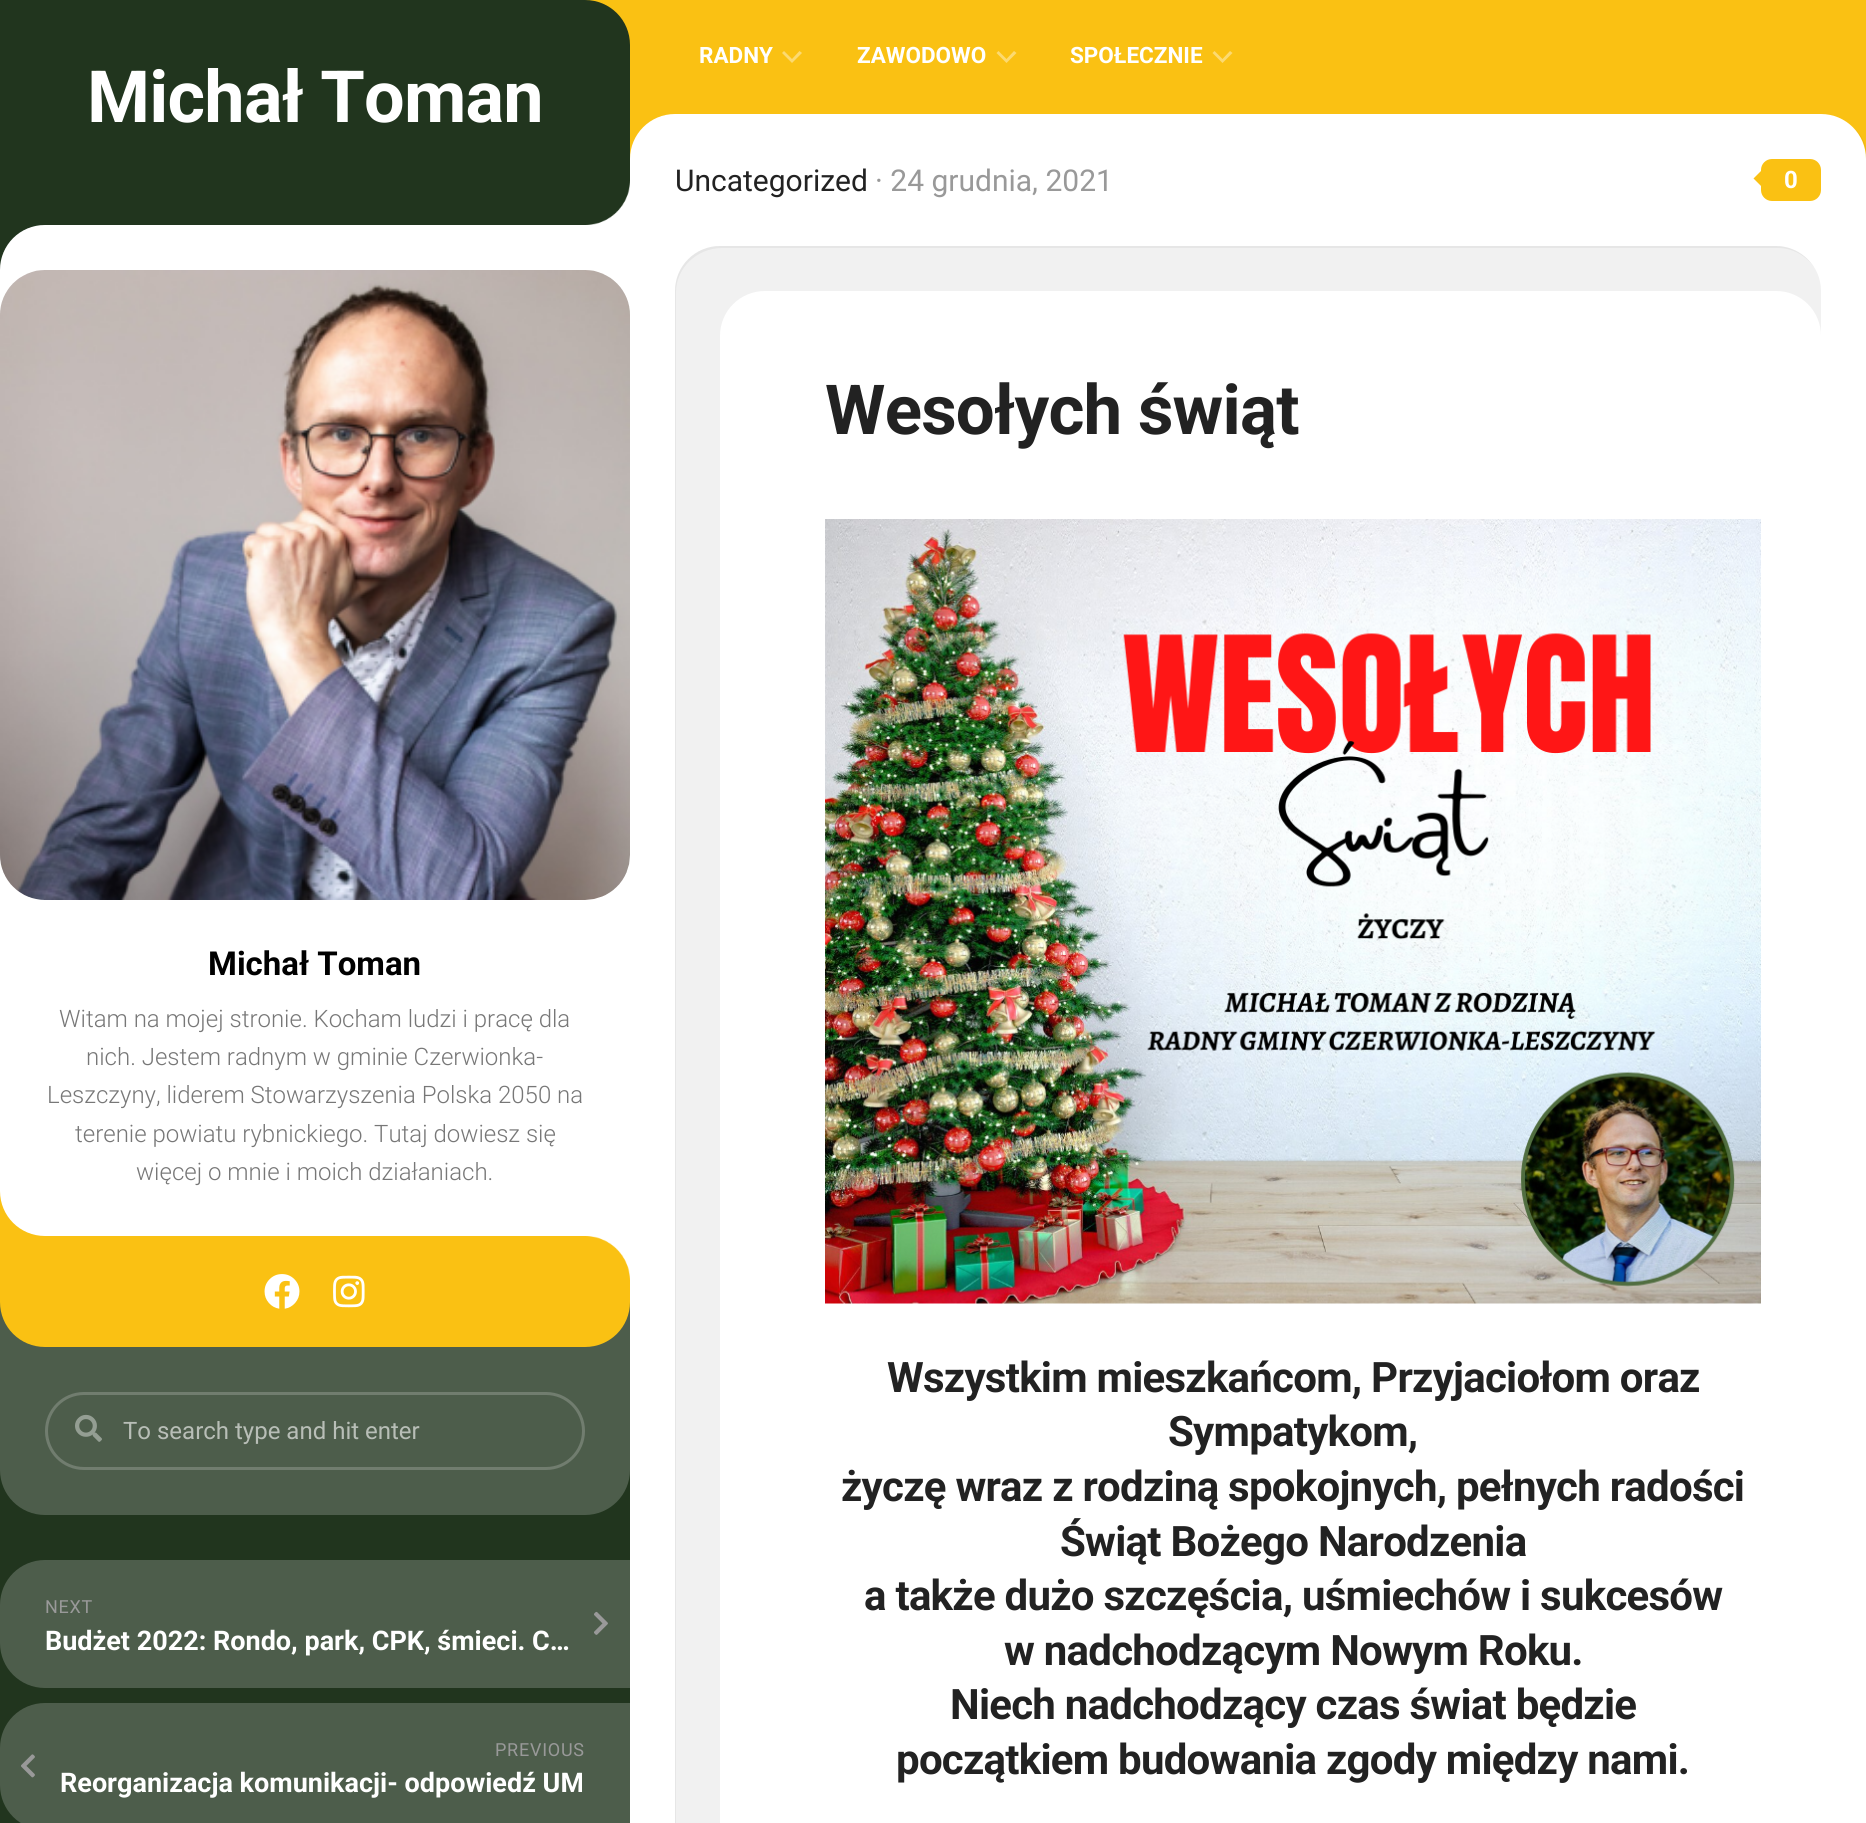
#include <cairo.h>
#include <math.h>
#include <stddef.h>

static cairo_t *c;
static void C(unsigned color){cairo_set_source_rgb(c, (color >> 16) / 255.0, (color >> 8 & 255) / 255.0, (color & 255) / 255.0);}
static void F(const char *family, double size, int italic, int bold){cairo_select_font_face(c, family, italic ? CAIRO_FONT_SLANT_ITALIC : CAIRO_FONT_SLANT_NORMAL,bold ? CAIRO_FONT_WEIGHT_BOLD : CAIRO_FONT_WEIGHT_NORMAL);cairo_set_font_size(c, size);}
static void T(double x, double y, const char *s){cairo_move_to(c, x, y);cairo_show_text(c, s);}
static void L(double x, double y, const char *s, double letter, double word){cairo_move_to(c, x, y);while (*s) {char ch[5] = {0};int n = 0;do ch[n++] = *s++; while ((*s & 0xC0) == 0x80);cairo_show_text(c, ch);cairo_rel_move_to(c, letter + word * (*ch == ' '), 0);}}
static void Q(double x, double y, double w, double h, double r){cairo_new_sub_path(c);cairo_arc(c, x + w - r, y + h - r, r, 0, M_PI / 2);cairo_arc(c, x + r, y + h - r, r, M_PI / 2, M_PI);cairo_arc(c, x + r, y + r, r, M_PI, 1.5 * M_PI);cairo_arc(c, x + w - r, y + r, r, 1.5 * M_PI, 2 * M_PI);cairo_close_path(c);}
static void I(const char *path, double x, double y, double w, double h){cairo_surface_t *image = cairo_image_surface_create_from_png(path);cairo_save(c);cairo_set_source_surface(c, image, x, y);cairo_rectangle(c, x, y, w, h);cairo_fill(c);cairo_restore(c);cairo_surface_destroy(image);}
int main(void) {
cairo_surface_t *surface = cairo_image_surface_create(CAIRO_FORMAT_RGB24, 1866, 1823);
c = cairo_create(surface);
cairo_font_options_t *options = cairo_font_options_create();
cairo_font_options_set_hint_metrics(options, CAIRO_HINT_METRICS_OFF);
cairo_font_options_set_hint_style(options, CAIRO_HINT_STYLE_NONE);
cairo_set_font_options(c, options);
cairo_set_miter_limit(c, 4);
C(0xfac113);
cairo_paint(c);
C(0x21351e);
cairo_new_path(c);
cairo_move_to(c,0,0);
cairo_line_to(c,585,0);
cairo_curve_to(c,610,0,630,20,630,45);
cairo_line_to(c,630,1823);
cairo_curve_to(c,630,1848,610,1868,585,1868);
cairo_line_to(c,0,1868);
cairo_close_path(c);
cairo_fill(c);
F("Roboto",72,0,1);
C(0xffffff);
L(87,122,"Michał Toman",-.75,0);
C(0x4d5d4b);
Q(0,225,630,1290,45);
cairo_fill(c);
C(0xfac113);
cairo_new_path(c);
cairo_move_to(c,0,1191);
cairo_line_to(c,630,1191);
cairo_line_to(c,630,1302);
cairo_curve_to(c,630,1327,610,1347,585,1347);
cairo_line_to(c,45,1347);
cairo_curve_to(c,20,1347,0,1327,0,1302);
cairo_close_path(c);
cairo_fill(c);
C(0xffffff);
cairo_new_path(c);
cairo_move_to(c,45,225);
cairo_line_to(c,630,225);
cairo_line_to(c,630,1236);
cairo_line_to(c,45,1236);
cairo_curve_to(c,20,1236,0,1216,0,1191);
cairo_line_to(c,0,270);
cairo_curve_to(c,0,245,20,225,45,225);
cairo_close_path(c);
cairo_fill(c);
I("1.png",586,181,44,44);
I("2.png",0,270,630,630);
F("Roboto",33,0,1);
C(0x000000);
T(208,975,"Michał Toman");
F("Roboto Light",24,0,0);
C(0x777777);
T(59,1027,"Witam na mojej stronie. Kocham ludzi i pracę dla");
T(86,1065,"nich. Jestem radnym w gminie Czerwionka-");
T(47,1103,"Leszczyny, liderem Stowarzyszenia Polska 2050 na");
T(75,1142,"terenie powiatu rybnickiego. Tutaj dowiesz się");
T(136,1180,"więcej o mnie i moich działaniach.");
I("3.png",586,1236,44,44);
I("4.png",264,1274,36,35);
I("5.png",333,1275,32,33);
Q(46.5,1393.5,537,75,37.5);
C(0x717d6f);
cairo_set_line_width(c,3);
cairo_stroke(c);
I("6.png",75,1414,27,28);
F("Roboto",24,0,0);
C(0xb8beb7);
T(123,1439,"To search type and hit enter");
C(0x4d5d4b);
cairo_new_path(c);
cairo_move_to(c,45,1560);
cairo_line_to(c,630,1560);
cairo_line_to(c,630,1688);
cairo_line_to(c,45,1688);
cairo_curve_to(c,20,1688,0,1668,0,1643);
cairo_line_to(c,0,1605);
cairo_curve_to(c,0,1580,20,1560,45,1560);
cairo_close_path(c);
cairo_fill(c);
F("Roboto",18,0,0);
C(0x999999);
L(45,1613,"NEXT",.75,0);
I("7.png",594,1611,14,24);
F("Roboto",27,0,1);
C(0xffffff);
T(45,1650,"Budżet 2022: Rondo, park, CPK, śmieci. C…");
C(0x4d5d4b);
cairo_new_path(c);
cairo_move_to(c,45,1703);
cairo_line_to(c,630,1703);
cairo_line_to(c,630,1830);
cairo_line_to(c,45,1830);
cairo_curve_to(c,20,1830,0,1810,0,1785);
cairo_line_to(c,0,1748);
cairo_curve_to(c,0,1723,20,1703,45,1703);
cairo_close_path(c);
cairo_fill(c);
F("Roboto",18,0,0);
C(0x999999);
L(495,1756,"PREVIOUS",.75,0);
I("8.png",21,1754,14,24);
F("Roboto",27,0,1);
C(0xffffff);
T(60,1792,"Reorganizacja komunikacji- odpowiedź UM");
F("Roboto",22.5,0,1);
T(699,63,"RADNY");
C(0xfcda71);
cairo_set_fill_rule(c,CAIRO_FILL_RULE_EVEN_ODD);
cairo_new_path(c);
cairo_move_to(c,792,59);
cairo_line_to(c,799.5,51);
cairo_line_to(c,802,53);
cairo_line_to(c,792,63);
cairo_line_to(c,782,53);
cairo_line_to(c,784,51);
cairo_close_path(c);
cairo_fill(c);
C(0xffffff);
T(857,63,"ZAWODOWO");
C(0xfcda71);
cairo_new_path(c);
cairo_move_to(c,1006.5,59);
cairo_line_to(c,1014,51);
cairo_line_to(c,1016.5,53);
cairo_line_to(c,1006.5,63);
cairo_line_to(c,996.5,53);
cairo_line_to(c,998.5,51);
cairo_close_path(c);
cairo_fill(c);
C(0xffffff);
T(1070,63,"SPOŁECZNIE");
C(0xfcda71);
cairo_new_path(c);
cairo_move_to(c,1222.5,59);
cairo_line_to(c,1230,51);
cairo_line_to(c,1232.5,53);
cairo_line_to(c,1222.5,63);
cairo_line_to(c,1212.5,53);
cairo_line_to(c,1214.5,51);
cairo_close_path(c);
cairo_fill(c);
C(0xeeb712);
cairo_set_fill_rule(c,CAIRO_FILL_RULE_WINDING);
cairo_new_path(c);
cairo_move_to(c,649,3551);
cairo_curve_to(c,657,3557,666,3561,677,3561);
cairo_line_to(c,1823,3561);
cairo_curve_to(c,1848,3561,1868,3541,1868,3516);
cairo_line_to(c,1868,161);
cairo_curve_to(c,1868,148,1863,136,1854,128);
cairo_curve_to(c,1861,136,1866,147,1866,159);
cairo_line_to(c,1866,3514);
cairo_curve_to(c,1866,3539,1846,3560,1821,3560);
cairo_line_to(c,675,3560);
cairo_curve_to(c,665,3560,656,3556,649,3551);
cairo_close_path(c);
cairo_fill(c);
C(0xffffff);
Q(630,114,1236,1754,45);
cairo_fill(c);
F("Roboto",30,0,0);
C(0x222222);
T(675,191,"Uncategorized");
C(0x999999);
T(875,191,"· 24 grudnia, 2021");
C(0xfac113);
Q(1761,159,60,42,11);
cairo_fill(c);
cairo_new_path(c);
cairo_move_to(c,1762.5,169.5);
cairo_line_to(c,1762.5,187.5);
cairo_line_to(c,1753.5,178.5);
cairo_close_path(c);
cairo_fill(c);
F("Roboto",24,0,1);
C(0xffffff);
T(1784,188,"0");
C(0xf1f1f1);
Q(675,246,1146,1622,45);
cairo_fill(c);
cairo_set_source_rgba(c,0,0,0,0.05);
cairo_new_path(c);
cairo_move_to(c,722,248);
cairo_line_to(c,1778,248);
cairo_curve_to(c,1793,248,1806,256,1814,267);
cairo_curve_to(c,1806,255,1792,246,1776,246);
cairo_line_to(c,720,246);
cairo_curve_to(c,695,246,675,266,675,291);
cairo_line_to(c,675,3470);
cairo_curve_to(c,675,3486,684,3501,697,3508);
cairo_curve_to(c,684,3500,676,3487,676,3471);
cairo_line_to(c,676,292);
cairo_curve_to(c,676,268,697,248,722,248);
cairo_close_path(c);
cairo_fill(c);
C(0xffffff);
cairo_new_path(c);
cairo_move_to(c,765,291);
cairo_line_to(c,1776,291);
cairo_curve_to(c,1801,291,1821,311,1821,336);
cairo_line_to(c,1821,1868);
cairo_line_to(c,765,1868);
cairo_curve_to(c,740,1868,720,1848,720,1823);
cairo_line_to(c,720,336);
cairo_curve_to(c,720,311,740,291,765,291);
cairo_close_path(c);
cairo_fill(c);
F("Roboto",69,0,1);
C(0x222222);
L(825,434,"Wesołych świąt",-.75,0);
I("9.png",825,519,936,785);
F("Roboto",42,0,1);
L(887,1392,"Wszystkim mieszkańcom, Przyjaciołom oraz",-.75,0);
L(1168,1446,"Sympatykom,",-.75,0);
L(841,1501,"życzę wraz z rodziną spokojnych, pełnych radości",-.75,0);
L(1060,1556,"Świąt Bożego Narodzenia",-.75,0);
L(864,1610,"a także dużo szczęścia, uśmiechów i sukcesów",-.75,0);
L(1004,1665,"w nadchodzącym Nowym Roku.",-.75,0);
L(950,1719,"Niech nadchodzący czas świat będzie",-.75,0);
L(896,1774,"początkiem budowania zgody między nami.",-.75,0);
cairo_surface_write_to_png(surface, "o.png");
cairo_font_options_destroy(options);
cairo_destroy(c);
cairo_surface_destroy(surface);
return 0;
}
